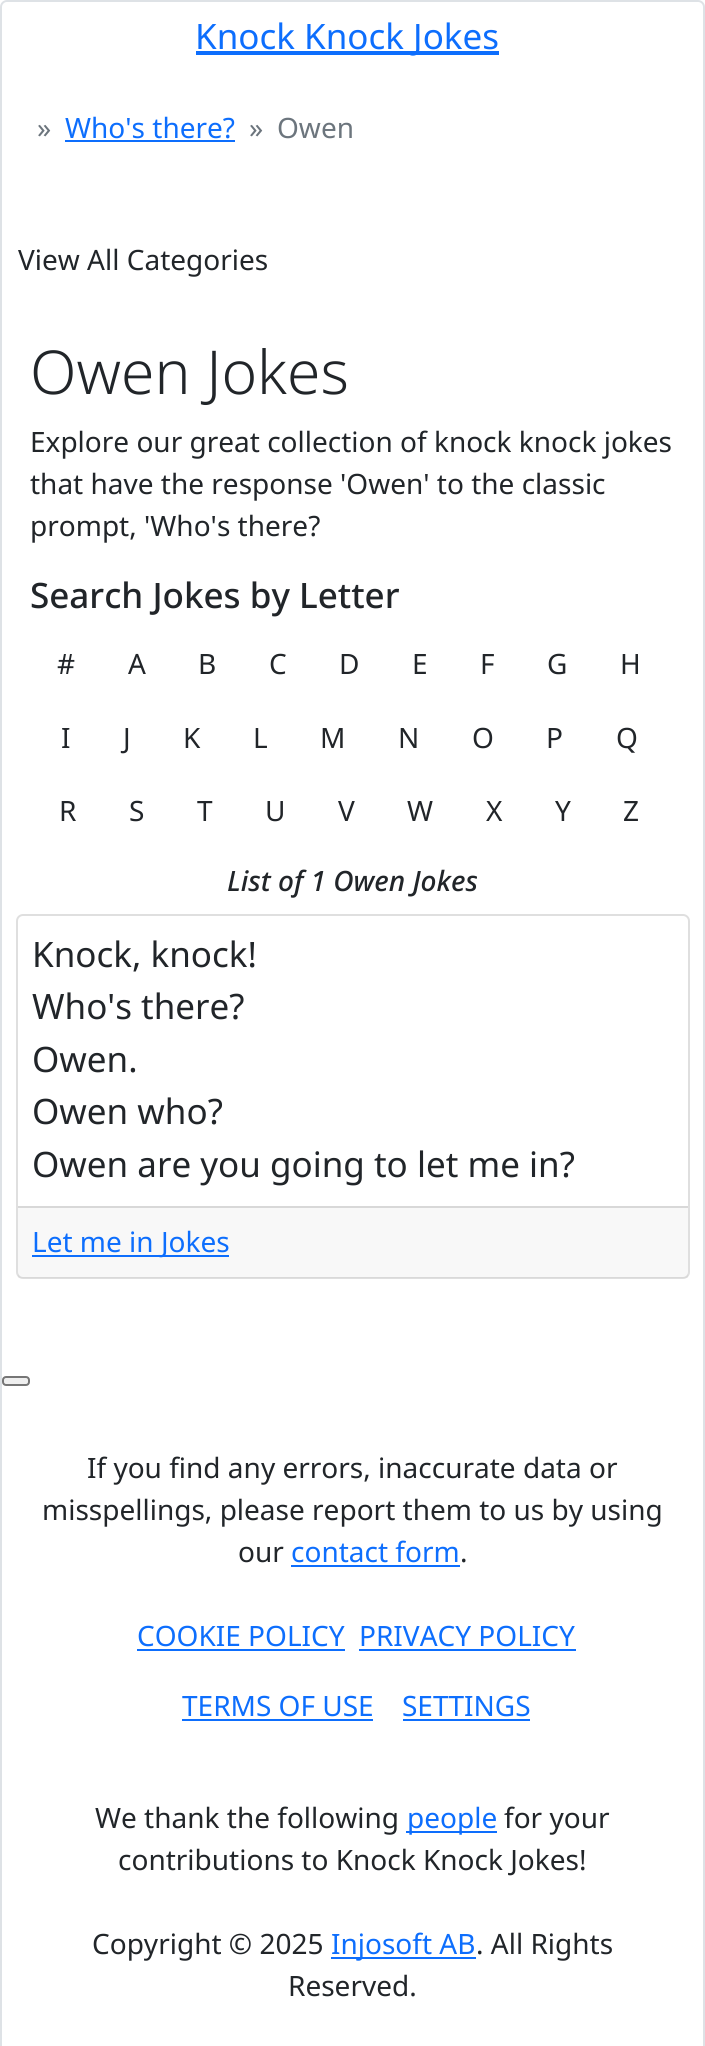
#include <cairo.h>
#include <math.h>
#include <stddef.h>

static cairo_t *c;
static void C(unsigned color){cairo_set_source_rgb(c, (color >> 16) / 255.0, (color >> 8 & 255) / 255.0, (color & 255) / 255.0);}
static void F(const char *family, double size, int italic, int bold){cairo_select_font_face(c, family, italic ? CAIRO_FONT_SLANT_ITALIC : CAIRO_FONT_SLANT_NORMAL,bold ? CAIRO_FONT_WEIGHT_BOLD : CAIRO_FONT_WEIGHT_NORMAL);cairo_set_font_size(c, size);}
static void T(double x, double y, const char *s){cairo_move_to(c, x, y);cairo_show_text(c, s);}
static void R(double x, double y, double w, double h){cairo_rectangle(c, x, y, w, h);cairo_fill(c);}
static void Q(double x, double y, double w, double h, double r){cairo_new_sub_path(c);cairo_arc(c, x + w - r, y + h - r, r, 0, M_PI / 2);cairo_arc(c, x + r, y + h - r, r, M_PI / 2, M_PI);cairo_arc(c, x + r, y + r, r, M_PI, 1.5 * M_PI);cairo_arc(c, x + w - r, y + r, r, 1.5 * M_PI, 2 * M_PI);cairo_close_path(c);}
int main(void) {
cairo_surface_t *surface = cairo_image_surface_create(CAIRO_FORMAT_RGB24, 705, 2046);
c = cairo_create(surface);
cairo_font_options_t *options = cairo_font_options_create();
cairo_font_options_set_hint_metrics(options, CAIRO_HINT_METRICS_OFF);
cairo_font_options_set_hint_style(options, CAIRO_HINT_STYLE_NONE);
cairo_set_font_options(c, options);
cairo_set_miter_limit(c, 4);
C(0xffffff);
cairo_paint(c);
Q(1,1,703,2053,6);
C(0xdee2e6);
cairo_stroke(c);
C(0x0d6efd);
R(196,51,303,4);
F("Noto Sans",35,0,0);
T(195,49,"Knock Knock Jokes");
F("Noto Sans",28,0,0);
C(0x6c757d);
T(37,138,"»");
C(0x0d6efd);
T(65,138,"Who's there?");
R(65,140,170,2);
C(0x6c757d);
T(249,138,"»");
T(277,138,"Owen");
C(0x212529);
T(18,270,"View All Categories");
F("Noto Sans Light",60.5,0,0);
T(30,394,"Owen Jokes");
F("Noto Sans",28,0,0);
T(30,452,"Explore our great collection of knock knock jokes");
T(30,494,"that have the response 'Owen' to the classic");
T(30,536,"prompt, 'Who's there?");
F("Noto Sans Medium",35,0,0);
T(30,608,"Search Jokes by Letter");
F("Noto Sans",28,0,0);
T(57,674,"#");
T(128,674,"A");
T(198,674,"B");
T(269,674,"C");
T(339,674,"D");
T(412,674,"E");
T(480,674,"F");
T(547,674,"G");
T(620,674,"H");
T(61,748,"I");
T(123,748,"J");
T(183,748,"K");
T(253,748,"L");
T(320,748,"M");
T(398,748,"N");
T(472,748,"O");
T(546,748,"P");
T(616,748,"Q");
T(59,821,"R");
T(129,821,"S");
T(197,821,"T");
T(265,821,"U");
T(338,821,"V");
T(407,821,"W");
T(486,821,"X");
T(555,821,"Y");
T(623,821,"Z");
F("Noto Sans Medium",28,1,0);
T(227,891,"List of 1 Owen Jokes");
Q(17,915,672,363,6);
C(0xdfdfdf);
cairo_stroke(c);
F("Noto Sans",35,0,0);
C(0x212529);
T(32,967,"Knock, knock!");
T(32,1019,"Who's there?");
T(32,1072,"Owen.");
T(32,1124,"Owen who?");
T(32,1177,"Owen are you going to let me in?");
cairo_set_source_rgba(c,0,0,0,0.03);
R(18,1208,670,70);
C(0xd8d8d8);
R(18,1206,670,2);
C(0x0d6efd);
R(32,1255,197,2);
F("Noto Sans",28,0,0);
T(32,1252,"Let me in Jokes");
C(0xefefef);
Q(3,1377,26,8,3);
cairo_fill_preserve(c);
C(0x767676);
cairo_stroke(c);
C(0x212529);
T(87,1478,"If you find any errors, inaccurate data or");
T(42,1520,"misspellings, please report them to us by using");
T(238,1562,"our");
C(0x0d6efd);
T(291,1562,"contact form");
R(291,1565,169,2);
C(0x212529);
T(460,1562,".");
C(0x0d6efd);
T(137,1646,"COOKIE POLICY");
R(137,1649,208,2);
T(359,1646,"PRIVACY POLICY");
R(359,1649,217,2);
T(182,1716,"TERMS OF USE");
R(182,1719,191,2);
T(402,1716,"SETTINGS");
R(403,1719,127,2);
C(0x212529);
T(95,1828,"We thank the following");
C(0x0d6efd);
R(406,1831,91,2);
T(407,1828,"people");
C(0x212529);
T(504,1828,"for your");
T(118,1870,"contributions to Knock Knock Jokes!");
T(92,1954,"Copyright © 2025");
C(0x0d6efd);
R(331,1957,145,2);
T(331,1954,"Injosoft AB");
C(0x212529);
T(476,1954,". All Rights");
T(288,1996,"Reserved.");
cairo_surface_write_to_png(surface, "o.png");
cairo_font_options_destroy(options);
cairo_destroy(c);
cairo_surface_destroy(surface);
return 0;
}
